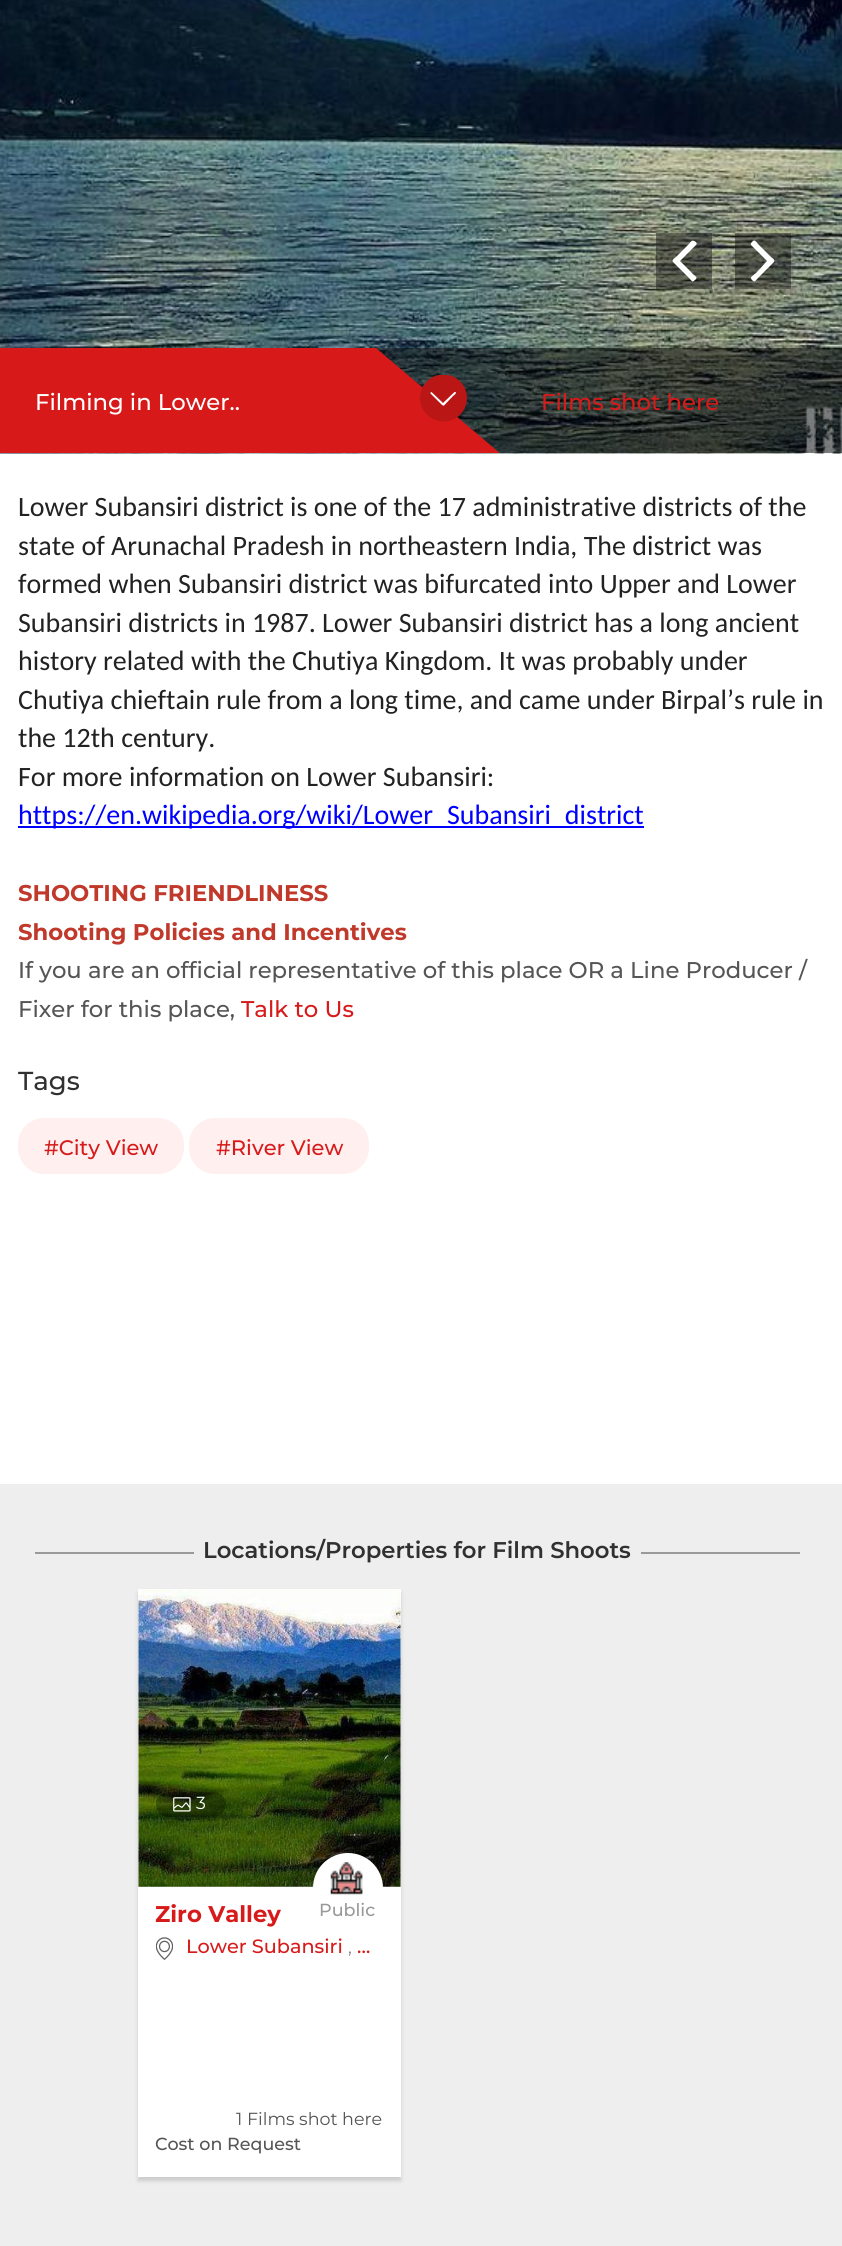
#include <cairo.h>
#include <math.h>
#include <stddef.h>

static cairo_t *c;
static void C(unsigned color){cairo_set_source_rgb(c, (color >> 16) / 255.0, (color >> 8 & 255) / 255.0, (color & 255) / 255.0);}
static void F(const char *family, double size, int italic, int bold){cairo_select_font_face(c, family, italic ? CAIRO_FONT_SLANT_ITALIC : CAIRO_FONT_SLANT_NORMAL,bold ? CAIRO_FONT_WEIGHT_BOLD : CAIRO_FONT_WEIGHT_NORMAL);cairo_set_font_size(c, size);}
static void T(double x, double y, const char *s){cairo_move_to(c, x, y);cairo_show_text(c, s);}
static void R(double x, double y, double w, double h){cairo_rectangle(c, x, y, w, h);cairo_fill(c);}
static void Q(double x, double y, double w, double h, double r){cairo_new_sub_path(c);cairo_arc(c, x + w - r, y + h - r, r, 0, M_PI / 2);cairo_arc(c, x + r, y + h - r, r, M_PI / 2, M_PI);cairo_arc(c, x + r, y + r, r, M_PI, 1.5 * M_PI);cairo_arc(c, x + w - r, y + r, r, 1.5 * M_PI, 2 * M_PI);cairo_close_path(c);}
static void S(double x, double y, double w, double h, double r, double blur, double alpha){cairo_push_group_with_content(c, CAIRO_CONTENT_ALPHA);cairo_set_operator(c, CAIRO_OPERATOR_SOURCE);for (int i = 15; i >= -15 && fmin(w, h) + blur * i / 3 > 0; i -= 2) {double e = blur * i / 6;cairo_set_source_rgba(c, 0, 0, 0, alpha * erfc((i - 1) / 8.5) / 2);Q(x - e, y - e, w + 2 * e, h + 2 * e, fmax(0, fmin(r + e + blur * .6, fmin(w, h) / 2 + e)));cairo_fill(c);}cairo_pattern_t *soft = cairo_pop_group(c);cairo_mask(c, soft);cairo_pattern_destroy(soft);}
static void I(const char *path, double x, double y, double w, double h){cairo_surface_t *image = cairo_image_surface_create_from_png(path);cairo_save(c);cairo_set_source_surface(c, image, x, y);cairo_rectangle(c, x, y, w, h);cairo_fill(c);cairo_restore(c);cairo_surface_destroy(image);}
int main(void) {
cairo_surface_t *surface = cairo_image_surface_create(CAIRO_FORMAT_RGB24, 842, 2246);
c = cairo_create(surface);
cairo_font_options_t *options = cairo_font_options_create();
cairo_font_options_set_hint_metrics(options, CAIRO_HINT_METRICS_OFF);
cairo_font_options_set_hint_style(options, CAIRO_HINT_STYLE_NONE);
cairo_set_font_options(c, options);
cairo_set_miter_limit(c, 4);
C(0xffffff);
cairo_paint(c);
I("1.png",0,0,842,454);
cairo_set_source_rgba(c,0.071,0.071,0.071,0.45);
R(656,233,56,56);
C(0xffffff);
cairo_set_fill_rule(c,CAIRO_FILL_RULE_EVEN_ODD);
cairo_new_path(c);
cairo_move_to(c,673,262);
cairo_line_to(c,689,278);
cairo_curve_to(c,692,281,692,283,695,280);
cairo_curve_to(c,699,277,694,276,691,272);
cairo_line_to(c,680,261);
cairo_line_to(c,696,245);
cairo_curve_to(c,698,243,695,241,694,241);
cairo_curve_to(c,692,239,689,244,689,244);
cairo_line_to(c,676,257);
cairo_curve_to(c,676,257,671,260,673,262);
cairo_close_path(c);
cairo_fill(c);
cairo_set_source_rgba(c,0.071,0.071,0.071,0.45);
R(735,233,56,56);
C(0xffffff);
cairo_new_path(c);
cairo_move_to(c,774,262);
cairo_line_to(c,758,278);
cairo_curve_to(c,755,281,755,283,752,280);
cairo_curve_to(c,749,277,753,276,757,272);
cairo_line_to(c,767,261);
cairo_line_to(c,751,245);
cairo_curve_to(c,750,243,753,241,753,241);
cairo_curve_to(c,755,239,758,244,758,244);
cairo_line_to(c,771,257);
cairo_curve_to(c,771,257,776,260,774,262);
cairo_close_path(c);
cairo_fill(c);
cairo_set_source_rgba(c,0,0,0,0.5);
R(376,348,466,105);
cairo_save(c);
cairo_set_fill_rule(c,CAIRO_FILL_RULE_WINDING);
cairo_rectangle(c,0,348,502,105);
cairo_clip(c);
C(0xd71919);
cairo_set_fill_rule(c,CAIRO_FILL_RULE_EVEN_ODD);
cairo_new_path(c);
cairo_move_to(c,-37,348);
cairo_line_to(c,376,348);
cairo_line_to(c,502,455);
cairo_line_to(c,-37,455);
cairo_close_path(c);
cairo_fill(c);
cairo_restore(c);
F("Montserrat Medium",22.75,0,0);
C(0xffffff);
T(35,410,"Filming in Lower..");
cairo_save(c);
cairo_set_fill_rule(c,CAIRO_FILL_RULE_WINDING);
cairo_rectangle(c,420,375,47,47);
cairo_clip(c);
C(0xba1616);
cairo_arc(c,443.5,398,23.5,0,2 * M_PI);
cairo_fill(c);
cairo_restore(c);
cairo_new_path(c);
cairo_move_to(c,432,392.5);
cairo_curve_to(c,431.5,391.5,430,392.5,430.5,393.5);
cairo_line_to(c,438.5,401.5);
cairo_curve_to(c,439.5,402,442.5,406.5,444,405.5);
cairo_line_to(c,453.5,395.5);
cairo_curve_to(c,454,395.5,457,393,455.5,392);
cairo_line_to(c,454.5,392);
cairo_line_to(c,443,403);
cairo_close_path(c);
cairo_fill(c);
C(0xd71a1a);
T(541,410,"Films shot here");
F("Carlito",28,0,0);
C(0x222222);
T(18,516,"Lower Subansiri district is one of the 17 administrative districts of the");
T(18,555,"state of Arunachal Pradesh in northeastern India, The district was");
T(18,593,"formed when Subansiri district was bifurcated into Upper and Lower");
T(18,632,"Subansiri districts in 1987. Lower Subansiri district has a long ancient");
T(18,670,"history related with the Chutiya Kingdom. It was probably under");
T(18,709,"Chutiya chieftain rule from a long time, and came under Birpal’s rule in");
T(18,747,"the 12th century.");
T(18,786,"For more information on Lower Subansiri:");
C(0x0000ff);
R(18,826,626,2);
T(18,824,"https://en.wikipedia.org/wiki/Lower_Subansiri_district");
F("Montserrat",22.75,0,1);
C(0xc0392b);
T(18,901,"SHOOTING FRIENDLINESS");
T(18,940,"Shooting Policies and Incentives");
F("Montserrat Medium",22.75,0,0);
C(0x555555);
T(18,978,"If you are an official representative of this place OR a Line Producer /");
T(18,1017,"Fixer for this place,");
C(0xd71a1a);
T(241,1017,"Talk to Us");
F("Montserrat Medium",26,0,0);
C(0x303030);
T(18,1090,"Tags");
C(0xffefef);
Q(18,1118,166,56,26);
cairo_fill(c);
F("Montserrat Medium",21,0,0);
C(0xd71a1a);
T(44,1155,"#City View");
C(0xffefef);
Q(189,1118,180,56,26);
cairo_fill(c);
C(0xd71a1a);
T(216,1155,"#River View");
C(0xeeeeee);
R(0,1484,842,762);
C(0x999999);
R(35,1552,765,2);
C(0xeeeeee);
R(194,1552,447,2);
F("Montserrat SemiBold",22.75,0,0);
C(0x303030);
T(203,1558,"Locations/Properties for Film Shoots");
C(0xcccccc);
S(138,1593,263,588,0,2,1);
C(0xffffff);
R(138,1589,263,588);
I("2.png",138,1589,263,298);
cairo_set_source_rgba(c,0,0,0,0.3);
Q(156,1792,70,25,12.5);
cairo_fill(c);
I("3.png",173,1797,18,15);
F("Montserrat",17.5,0,0);
C(0xffffff);
T(196,1809,"3");
cairo_new_path(c);
cairo_arc(c,348,1888,35,0,2 * M_PI);
cairo_fill(c);
I("4.png",330,1862,33,33);
F("Montserrat Medium",17.5,0,0);
C(0x999999);
T(319,1916,"Public");
F("Montserrat",22.75,0,1);
C(0xd71a1a);
T(155,1922,"Ziro Valley");
I("5.png",156,1937,17,23);
F("Montserrat Medium",19.25,0,0);
T(186,1953,"Lower Subansiri");
F("Montserrat Light",19.25,0,0);
C(0x5f5f5f);
T(348,1953,",");
F("Montserrat Medium",19.25,0,0);
C(0xd71a1a);
T(357,1953,"…");
F("Montserrat",17.5,0,0);
C(0x555555);
T(236,2125,"1 Films shot here");
F("Montserrat Medium",17.5,0,0);
T(155,2150,"Cost on Request");
cairo_surface_write_to_png(surface, "o.png");
cairo_font_options_destroy(options);
cairo_destroy(c);
cairo_surface_destroy(surface);
return 0;
}
